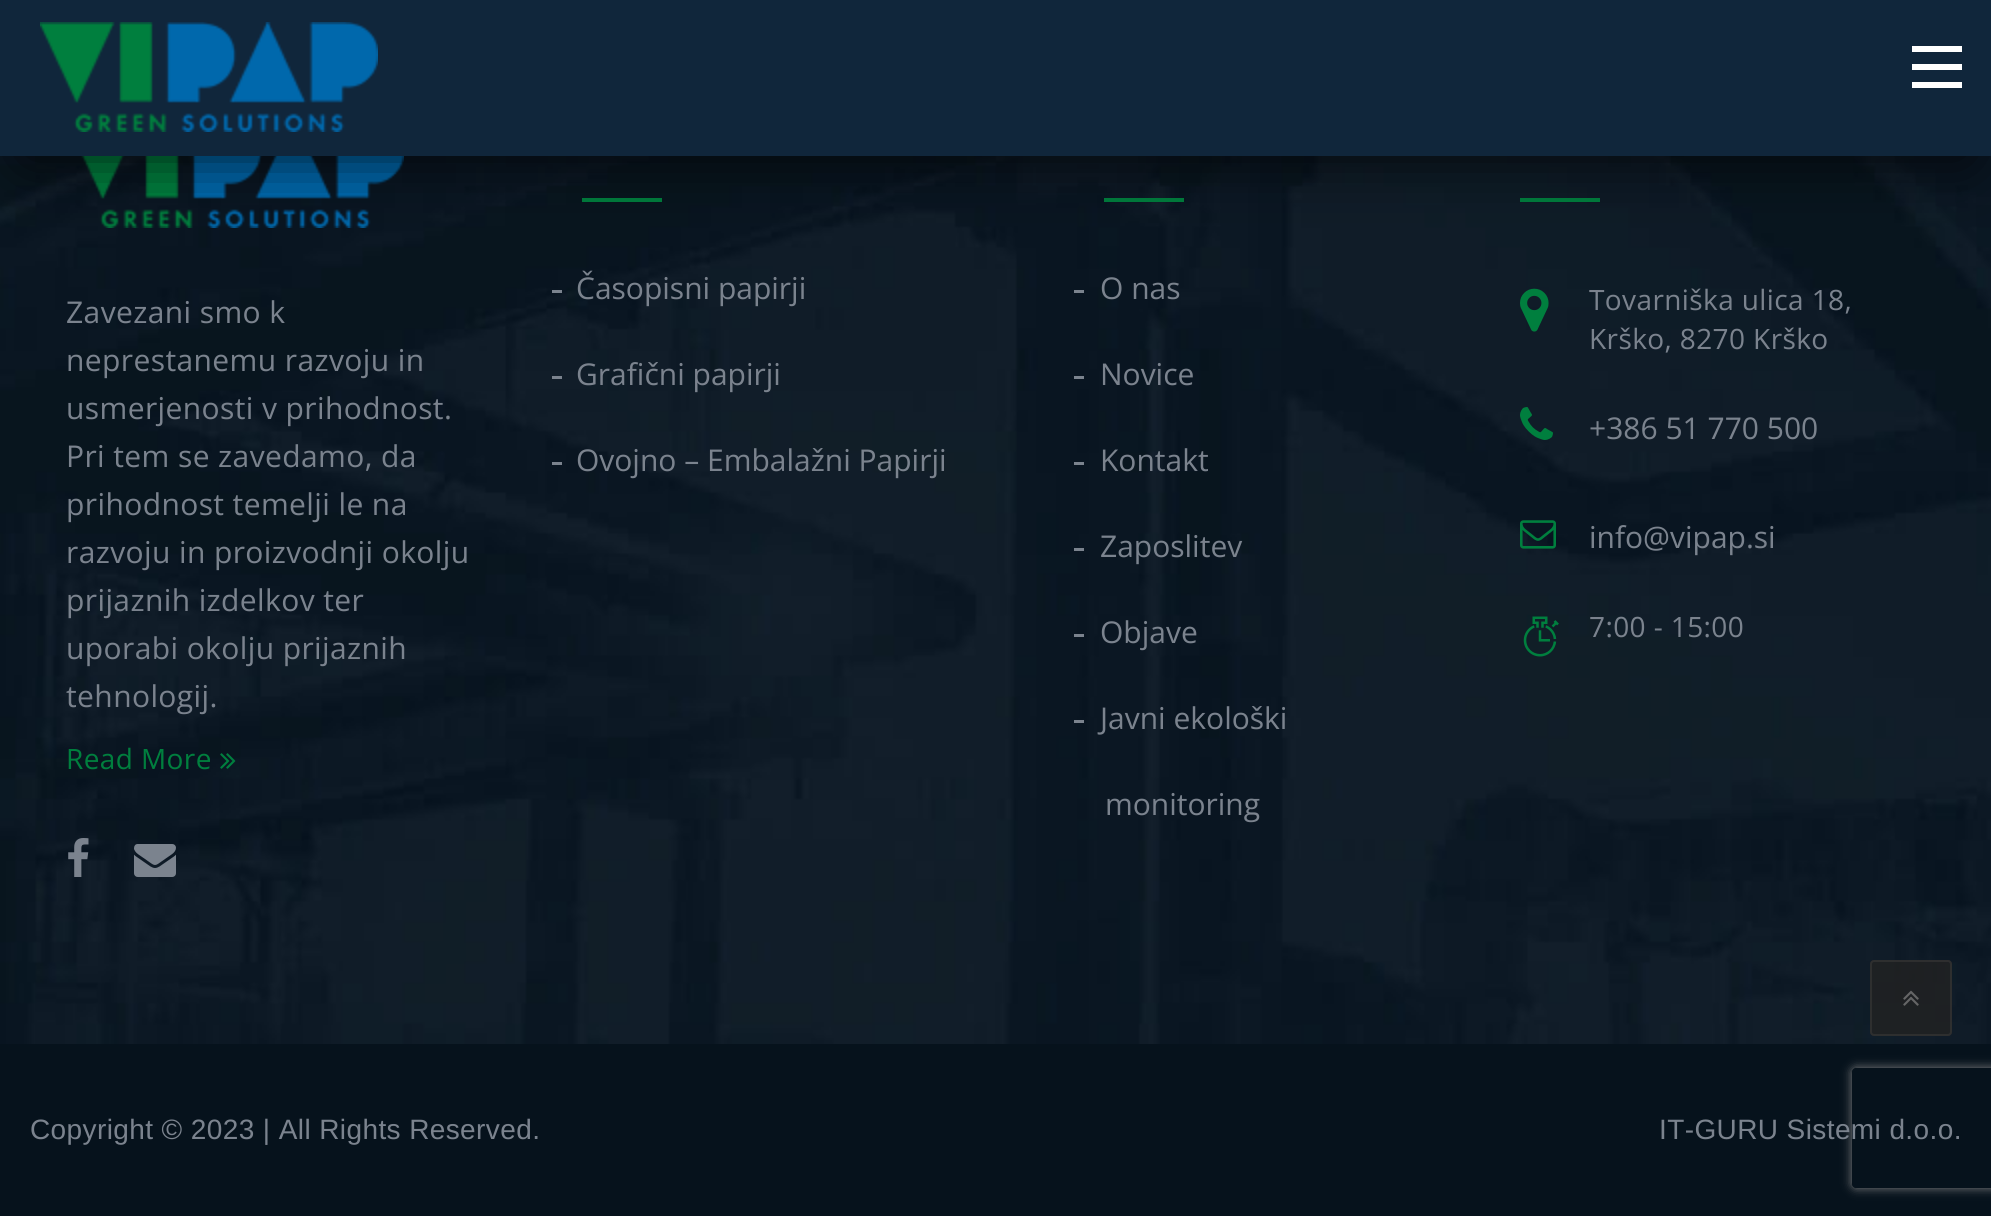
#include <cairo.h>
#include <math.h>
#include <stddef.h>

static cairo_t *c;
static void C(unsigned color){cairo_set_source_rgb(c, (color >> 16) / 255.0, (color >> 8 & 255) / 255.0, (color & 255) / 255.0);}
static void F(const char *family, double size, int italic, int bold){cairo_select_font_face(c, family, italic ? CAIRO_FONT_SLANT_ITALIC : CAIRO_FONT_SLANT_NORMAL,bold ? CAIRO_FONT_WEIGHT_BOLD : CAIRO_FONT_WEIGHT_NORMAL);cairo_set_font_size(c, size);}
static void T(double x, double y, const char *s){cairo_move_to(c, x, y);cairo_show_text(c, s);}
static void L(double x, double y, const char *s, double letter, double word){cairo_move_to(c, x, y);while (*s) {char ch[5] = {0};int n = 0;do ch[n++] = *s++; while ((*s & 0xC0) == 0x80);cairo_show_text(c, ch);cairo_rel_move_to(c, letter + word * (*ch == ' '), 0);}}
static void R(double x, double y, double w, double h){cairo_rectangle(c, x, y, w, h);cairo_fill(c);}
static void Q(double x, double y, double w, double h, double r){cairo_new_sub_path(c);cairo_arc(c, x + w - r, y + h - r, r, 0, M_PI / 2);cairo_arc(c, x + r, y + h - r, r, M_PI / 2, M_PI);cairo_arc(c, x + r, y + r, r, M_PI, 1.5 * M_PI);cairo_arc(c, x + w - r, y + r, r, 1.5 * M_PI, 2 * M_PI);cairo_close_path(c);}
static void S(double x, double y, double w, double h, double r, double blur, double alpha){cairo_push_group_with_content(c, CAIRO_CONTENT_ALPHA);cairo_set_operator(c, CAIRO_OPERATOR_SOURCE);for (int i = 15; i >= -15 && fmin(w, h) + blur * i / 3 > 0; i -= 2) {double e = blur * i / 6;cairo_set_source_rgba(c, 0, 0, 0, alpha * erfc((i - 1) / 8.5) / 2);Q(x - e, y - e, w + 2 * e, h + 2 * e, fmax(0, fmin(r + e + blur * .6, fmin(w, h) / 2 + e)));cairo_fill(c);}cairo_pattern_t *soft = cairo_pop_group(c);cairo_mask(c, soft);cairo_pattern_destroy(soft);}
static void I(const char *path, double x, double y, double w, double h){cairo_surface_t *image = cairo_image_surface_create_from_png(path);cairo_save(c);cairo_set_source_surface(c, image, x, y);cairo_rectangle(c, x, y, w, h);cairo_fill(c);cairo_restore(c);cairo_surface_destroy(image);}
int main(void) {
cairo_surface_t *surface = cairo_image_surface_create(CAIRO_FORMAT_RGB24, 1991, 1216);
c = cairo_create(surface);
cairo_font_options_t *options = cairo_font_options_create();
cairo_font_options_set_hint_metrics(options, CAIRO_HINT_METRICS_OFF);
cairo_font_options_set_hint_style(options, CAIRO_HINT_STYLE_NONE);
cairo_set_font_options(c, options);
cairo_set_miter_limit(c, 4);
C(0xffffff);
cairo_paint(c);
I("2.png",0,156,1991,888);
I("3.png",81,156,323,72);
C(0x007f3e);
R(582,198,80,4);
R(1104,198,80,4);
R(1520,198,80,4);
C(0x000000);
S(24,50,1944,108,0,30,.75);
C(0x10263b);
R(0,0,1991,156);
I("1.png",40,22,338,110);
C(0xffffff);
R(1912,46,50,6);
R(1912,64,50,6);
R(1912,82,50,6);
F("Open Sans",30,0,0);
C(0x7b838e);
L(66,323,"Zavezani smo k",.4,0);
L(66,371,"neprestanemu razvoju in",.4,0);
L(66,419,"usmerjenosti v prihodnost.",.4,0);
L(66,467,"Pri tem se zavedamo, da",.4,0);
L(66,515,"prihodnost temelji le na",.4,0);
L(66,563,"razvoju in proizvodnji okolju",.4,0);
L(66,611,"prijaznih izdelkov ter",.4,0);
L(66,659,"uporabi okolju prijaznih",.4,0);
L(66,707,"tehnologij.",.4,0);
F("Open Sans",28,0,0);
C(0x007f3e);
L(66,769,"Read More",.4,0);
I("4.png",220,753,16,16);
I("5.png",68,838,21,39);
I("6.png",134,844,42,33);
F("Open Sans",30,0,0);
C(0x7b838e);
T(576,299,"Časopisni papirji");
R(552,290,10,3);
T(576,385,"Grafični papirji");
R(552,376,10,3);
T(576,471,"Ovojno – Embalažni Papirji");
R(552,462,10,3);
T(1100,299,"O nas");
R(1074,290,10,3);
T(1100,385,"Novice");
R(1074,376,10,3);
T(1100,471,"Kontakt");
R(1074,462,10,3);
T(1100,557,"Zaposlitev");
R(1074,548,10,3);
T(1100,643,"Objave");
R(1074,634,10,3);
T(1100,729,"Javni ekološki");
R(1074,720,10,3);
T(1105,815,"monitoring");
I("7.png",1520,288,29,44);
F("Open Sans",28,0,0);
L(1589,310,"Tovarniška ulica 18,",.4,0);
L(1589,349,"Krško, 8270 Krško",.4,0);
I("8.png",1520,407,33,33);
F("Open Sans",30,0,0);
T(1589,439,"+386 51 770 500");
I("9.png",1520,520,36,29);
T(1589,548,"info@vipap.si");
I("10.png",1523,616,36,41);
F("Open Sans",28,0,0);
L(1589,637,"7:00 - 15:00",.4,0);
cairo_set_source_rgba(c,0.133,0.133,0.133,0.8);
Q(1870,960,82,76,4);
cairo_fill(c);
Q(1871,961,80,74,3);
cairo_set_source_rgba(c,0.2,0.2,0.2,0.8);
cairo_stroke(c);
I("11.png",1903,990,16,16);
C(0x06121c);
R(0,1044,1991,172);
cairo_save(c);
cairo_set_fill_rule(c,CAIRO_FILL_RULE_EVEN_ODD);
cairo_new_path(c);
cairo_move_to(c,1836,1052);
cairo_line_to(c,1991,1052);
cairo_line_to(c,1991,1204);
cairo_line_to(c,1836,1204);
cairo_close_path(c);
cairo_move_to(c,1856,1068);
cairo_line_to(c,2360,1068);
cairo_curve_to(c,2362,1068,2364,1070,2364,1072);
cairo_line_to(c,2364,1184);
cairo_curve_to(c,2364,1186,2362,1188,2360,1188);
cairo_line_to(c,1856,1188);
cairo_curve_to(c,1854,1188,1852,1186,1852,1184);
cairo_line_to(c,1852,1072);
cairo_curve_to(c,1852,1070,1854,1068,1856,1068);
cairo_close_path(c);
cairo_clip(c);
C(0x808080);
S(1852,1068,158,120,4,5,1);
cairo_restore(c);
F("Liberation Sans",28,0,0);
C(0x7b838e);
L(30,1139,"Copyright © 2023 | All Rights Reserved.",.4,0);
L(1659,1139,"IT-GURU Sistemi d.o.o.",.4,0);
cairo_surface_write_to_png(surface, "o.png");
cairo_font_options_destroy(options);
cairo_destroy(c);
cairo_surface_destroy(surface);
return 0;
}
